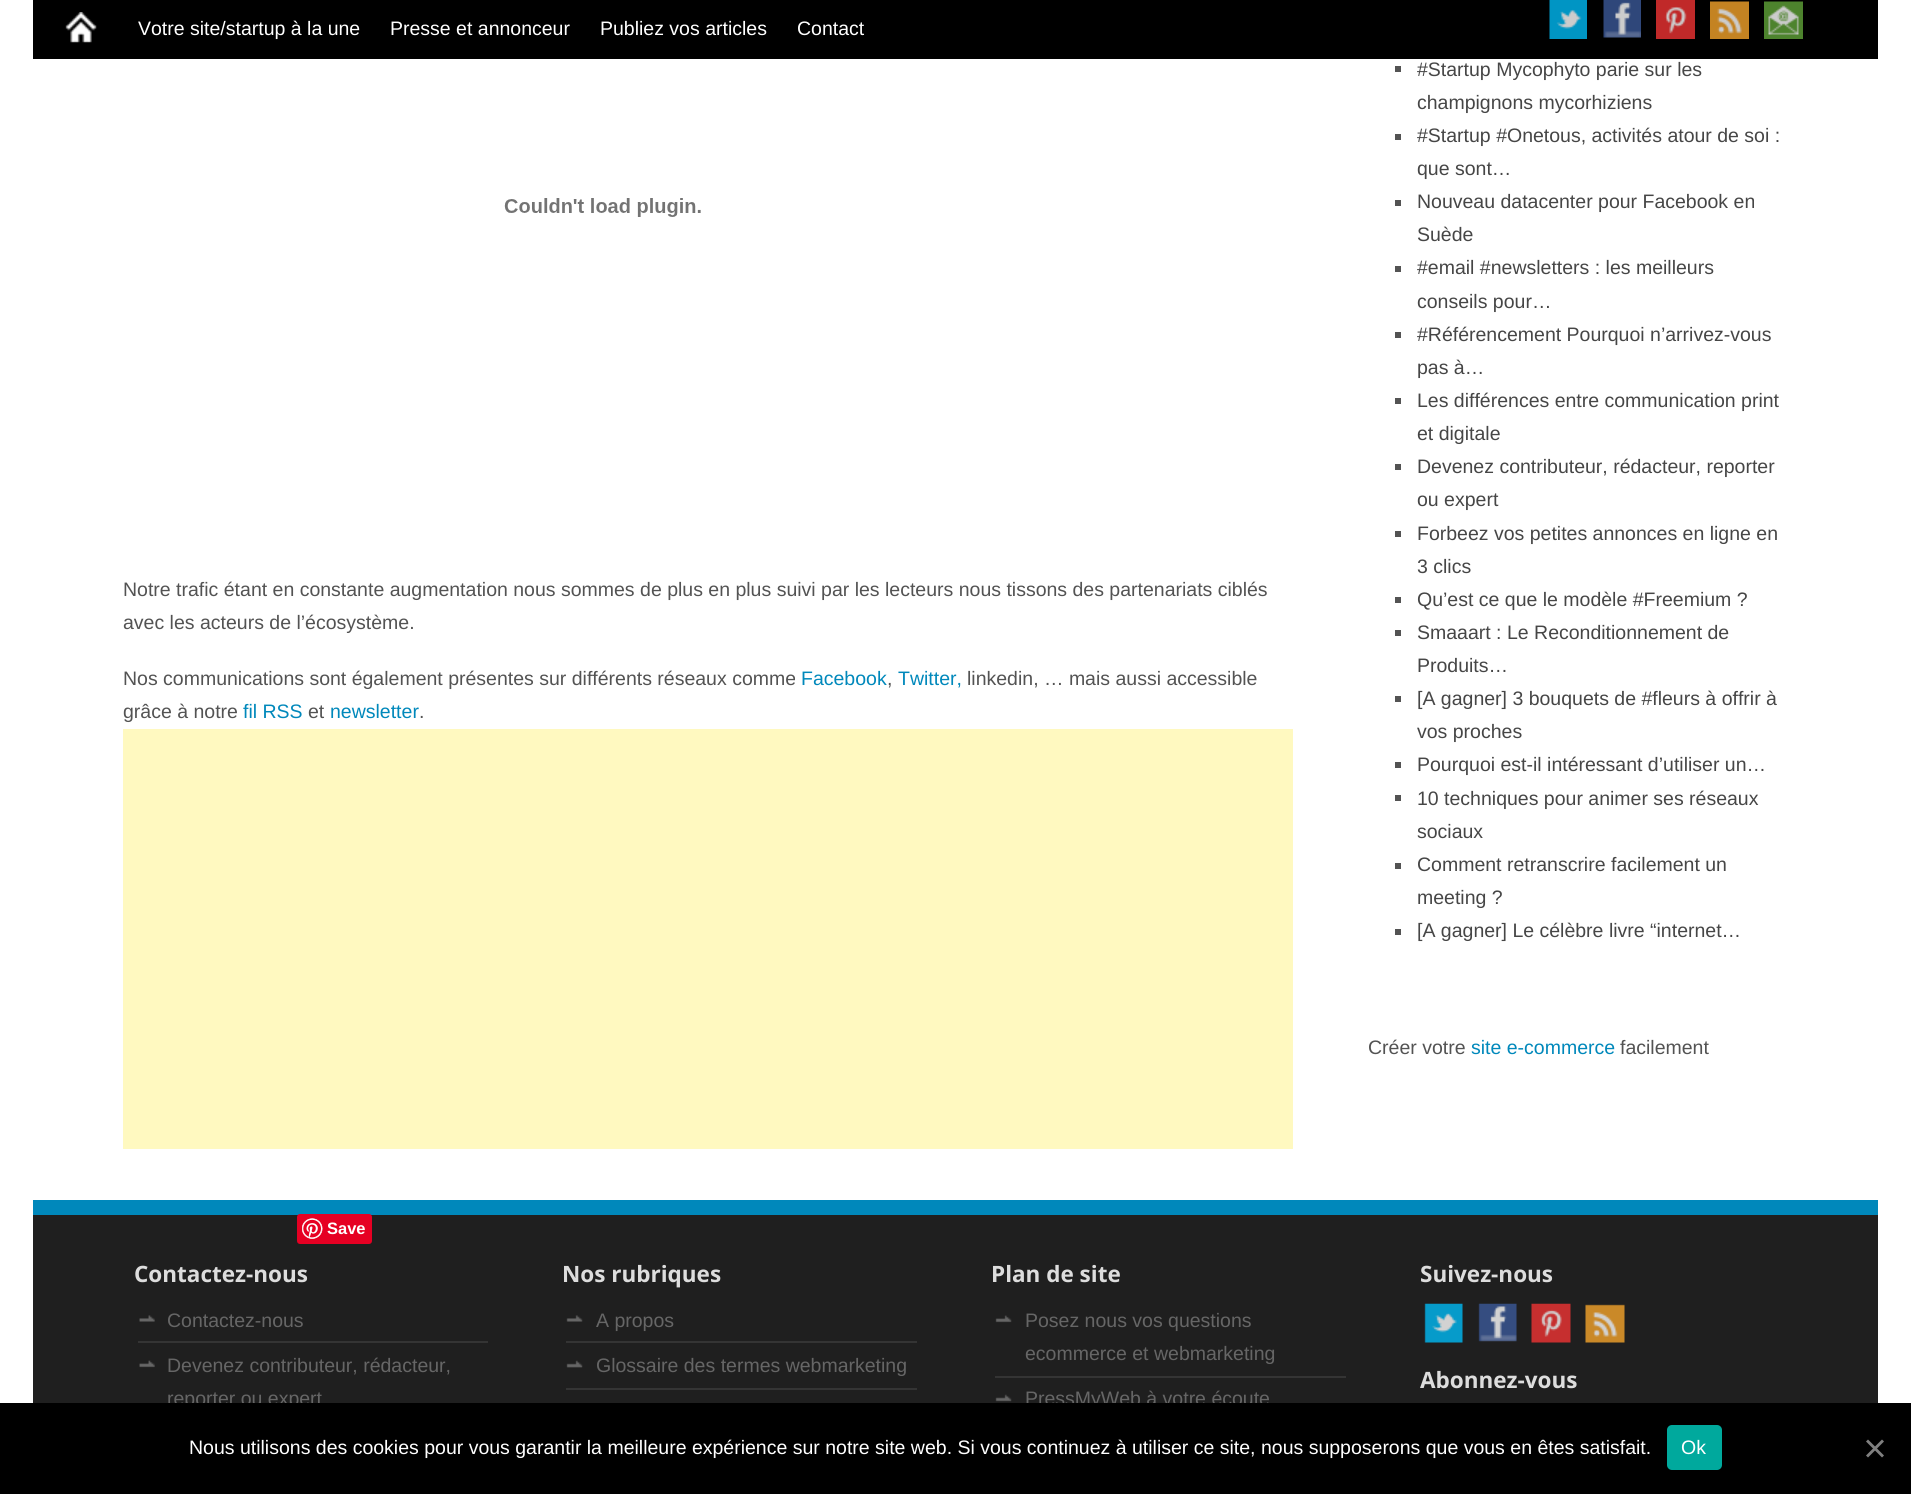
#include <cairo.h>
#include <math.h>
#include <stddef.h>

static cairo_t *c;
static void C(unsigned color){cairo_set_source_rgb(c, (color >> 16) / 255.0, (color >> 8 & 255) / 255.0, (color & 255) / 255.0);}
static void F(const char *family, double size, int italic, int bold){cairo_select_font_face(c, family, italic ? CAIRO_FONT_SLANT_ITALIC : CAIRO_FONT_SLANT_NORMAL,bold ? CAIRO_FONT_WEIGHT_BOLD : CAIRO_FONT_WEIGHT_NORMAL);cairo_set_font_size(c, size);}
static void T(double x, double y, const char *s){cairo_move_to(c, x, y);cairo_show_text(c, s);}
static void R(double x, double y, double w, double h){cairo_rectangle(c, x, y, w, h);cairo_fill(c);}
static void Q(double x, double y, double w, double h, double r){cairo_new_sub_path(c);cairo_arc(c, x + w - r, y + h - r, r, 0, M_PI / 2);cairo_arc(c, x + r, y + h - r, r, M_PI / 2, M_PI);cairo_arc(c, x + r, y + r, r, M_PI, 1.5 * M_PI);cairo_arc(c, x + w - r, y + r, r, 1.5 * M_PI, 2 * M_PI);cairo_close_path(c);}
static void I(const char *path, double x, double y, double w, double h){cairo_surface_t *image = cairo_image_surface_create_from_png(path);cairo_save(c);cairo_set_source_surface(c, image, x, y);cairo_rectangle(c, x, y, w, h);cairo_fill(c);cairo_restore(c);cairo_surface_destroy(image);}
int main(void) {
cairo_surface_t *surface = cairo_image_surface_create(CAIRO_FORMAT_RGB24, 1911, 1494);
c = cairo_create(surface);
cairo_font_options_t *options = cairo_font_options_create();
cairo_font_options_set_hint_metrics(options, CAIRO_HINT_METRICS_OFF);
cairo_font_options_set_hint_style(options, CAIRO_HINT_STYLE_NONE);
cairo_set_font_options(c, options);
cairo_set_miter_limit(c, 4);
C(0xffffff);
cairo_paint(c);
C(0x000000);
R(33,0,1845,59);
I("1.png",65,12,32,31);
F("Liberation Sans",19.5,0,0);
C(0xffffff);
T(138,35,"Votre site/startup à la une");
T(390,35,"Presse et annonceur");
T(600,35,"Publiez vos articles");
T(797,35,"Contact");
I("2.png",1549,0,38,39);
I("3.png",1603,0,38,38);
I("4.png",1656,0,39,39);
I("5.png",1710,1,39,38);
I("6.png",1764,1,39,38);
I("7.png",504,198,197,19);
C(0x535353);
T(123,596,"Notre trafic étant en constante augmentation nous sommes de plus en plus suivi par les lecteurs nous tissons des partenariats ciblés");
T(123,629,"avec les acteurs de l’écosystème.");
T(123,685,"Nos communications sont également présentes sur différents réseaux comme");
C(0x0088bb);
T(801,685,"Facebook");
C(0x535353);
T(887,685,",");
C(0x0088bb);
T(898,685,"Twitter,");
C(0x535353);
T(967,685,"linkedin, … mais aussi accessible");
T(123,718,"grâce à notre");
C(0x0088bb);
T(243,718,"fil RSS");
C(0x535353);
T(308,718,"et");
C(0x0088bb);
T(330,718,"newsletter");
C(0x535353);
T(419,718,".");
C(0xfff9c0);
R(123,729,1170,420);
C(0x1f1f1f);
R(33,1215,1845,188);
C(0x0088bb);
R(33,1200,1845,15);
C(0xe60023);
Q(297,1214,75,30,3);
cairo_fill(c);
I("8.png",302,1218,21,21);
F("Liberation Sans",16.5,0,1);
C(0xffffff);
T(327,1234,"Save");
C(0x535353);
R(1395,66,6,6);
F("Liberation Sans",19.5,0,0);
C(0x464646);
T(1417,76,"#Startup Mycophyto parie sur les");
T(1417,109,"champignons mycorhiziens");
C(0x535353);
R(1395,134,6,6);
C(0x464646);
T(1417,142,"#Startup #Onetous, activités atour de soi :");
T(1417,175,"que sont…");
C(0x535353);
R(1395,200,6,6);
C(0x464646);
T(1417,208,"Nouveau datacenter pour Facebook en");
T(1417,241,"Suède");
C(0x535353);
R(1395,266,6,6);
C(0x464646);
T(1417,274,"#email #newsletters : les meilleurs");
T(1417,308,"conseils pour…");
C(0x535353);
R(1395,332,6,6);
C(0x464646);
T(1417,341,"#Référencement Pourquoi n’arrivez-vous");
T(1417,374,"pas à…");
C(0x535353);
R(1395,398,6,6);
C(0x464646);
T(1417,407,"Les différences entre communication print");
T(1417,440,"et digitale");
C(0x535353);
R(1395,464,6,6);
C(0x464646);
T(1417,473,"Devenez contributeur, rédacteur, reporter");
T(1417,506,"ou expert");
C(0x535353);
R(1395,531,6,6);
C(0x464646);
T(1417,540,"Forbeez vos petites annonces en ligne en");
T(1417,573,"3 clics");
C(0x535353);
R(1395,597,6,6);
C(0x464646);
T(1417,606,"Qu’est ce que le modèle #Freemium ?");
C(0x535353);
R(1395,630,6,6);
C(0x464646);
T(1417,639,"Smaaart : Le Reconditionnement de");
T(1417,672,"Produits…");
C(0x535353);
R(1395,696,6,6);
C(0x464646);
T(1417,705,"[A gagner] 3 bouquets de #fleurs à offrir à");
T(1417,738,"vos proches");
C(0x535353);
R(1395,762,6,6);
C(0x464646);
T(1417,771,"Pourquoi est-il intéressant d’utiliser un…");
C(0x535353);
R(1395,795,6,6);
C(0x464646);
T(1417,805,"10 techniques pour animer ses réseaux");
T(1417,838,"sociaux");
C(0x535353);
R(1395,863,6,6);
C(0x464646);
T(1417,871,"Comment retranscrire facilement un");
T(1417,904,"meeting ?");
C(0x535353);
R(1395,929,6,6);
C(0x464646);
T(1417,937,"[A gagner] Le célèbre livre “internet…");
C(0x535353);
T(1368,1054,"Créer votre");
C(0x0088bb);
T(1471,1054,"site e-commerce");
C(0x535353);
T(1620,1054,"facilement");
F("Open Sans",22.5,0,1);
C(0xdddddd);
T(134,1282,"Contactez-nous");
I("9.png",139,1315,16,7);
C(0x343434);
R(138,1341,350,2);
F("Liberation Sans",19.5,0,0);
C(0x666666);
T(167,1327,"Contactez-nous");
I("10.png",139,1360,16,8);
T(167,1372,"Devenez contributeur, rédacteur,");
T(167,1405,"reporter ou expert");
F("Open Sans",22.5,0,1);
C(0xdddddd);
T(562,1282,"Nos rubriques");
I("11.png",566,1315,17,7);
C(0x343434);
R(566,1341,351,2);
F("Liberation Sans",19.5,0,0);
C(0x666666);
T(596,1327,"A propos");
I("12.png",566,1360,17,8);
C(0x343434);
R(566,1388,351,2);
C(0x666666);
T(596,1372,"Glossaire des termes webmarketing");
F("Open Sans",22.5,0,1);
C(0xdddddd);
T(991,1282,"Plan de site");
I("13.png",995,1315,17,8);
C(0x343434);
R(995,1376,351,2);
F("Liberation Sans",19.5,0,0);
C(0x666666);
T(1025,1327,"Posez nous vos questions");
T(1025,1360,"ecommerce et webmarketing");
I("14.png",995,1394,17,8);
T(1025,1405,"PressMyWeb à votre écoute");
F("Open Sans",22.5,0,1);
C(0xdddddd);
T(1420,1282,"Suivez-nous");
I("15.png",1424,1303,39,40);
I("16.png",1478,1303,39,39);
I("17.png",1531,1303,40,40);
I("18.png",1585,1304,40,39);
T(1420,1388,"Abonnez-vous");
C(0x000000);
R(0,1403,1911,91);
F("Liberation Sans",19.5,0,0);
C(0xffffff);
T(189,1454,"Nous utilisons des cookies pour vous garantir la meilleure expérience sur notre site web. Si vous continuez à utiliser ce site, nous supposerons que vous en êtes satisfait.");
C(0x00a99d);
Q(1667,1425,55,45,5);
cairo_fill(c);
C(0xffffff);
T(1681,1454,"Ok");
C(0x808080);
cairo_new_path(c);
cairo_move_to(c,1882,1439.5);
cairo_line_to(c,1884,1441.5);
cairo_line_to(c,1868,1457.5);
cairo_line_to(c,1866,1455.5);
cairo_close_path(c);
cairo_fill(c);
cairo_new_path(c);
cairo_move_to(c,1866,1441.5);
cairo_line_to(c,1868,1439.5);
cairo_line_to(c,1884,1455.5);
cairo_line_to(c,1882,1457.5);
cairo_close_path(c);
cairo_fill(c);
cairo_surface_write_to_png(surface, "o.png");
cairo_font_options_destroy(options);
cairo_destroy(c);
cairo_surface_destroy(surface);
return 0;
}
